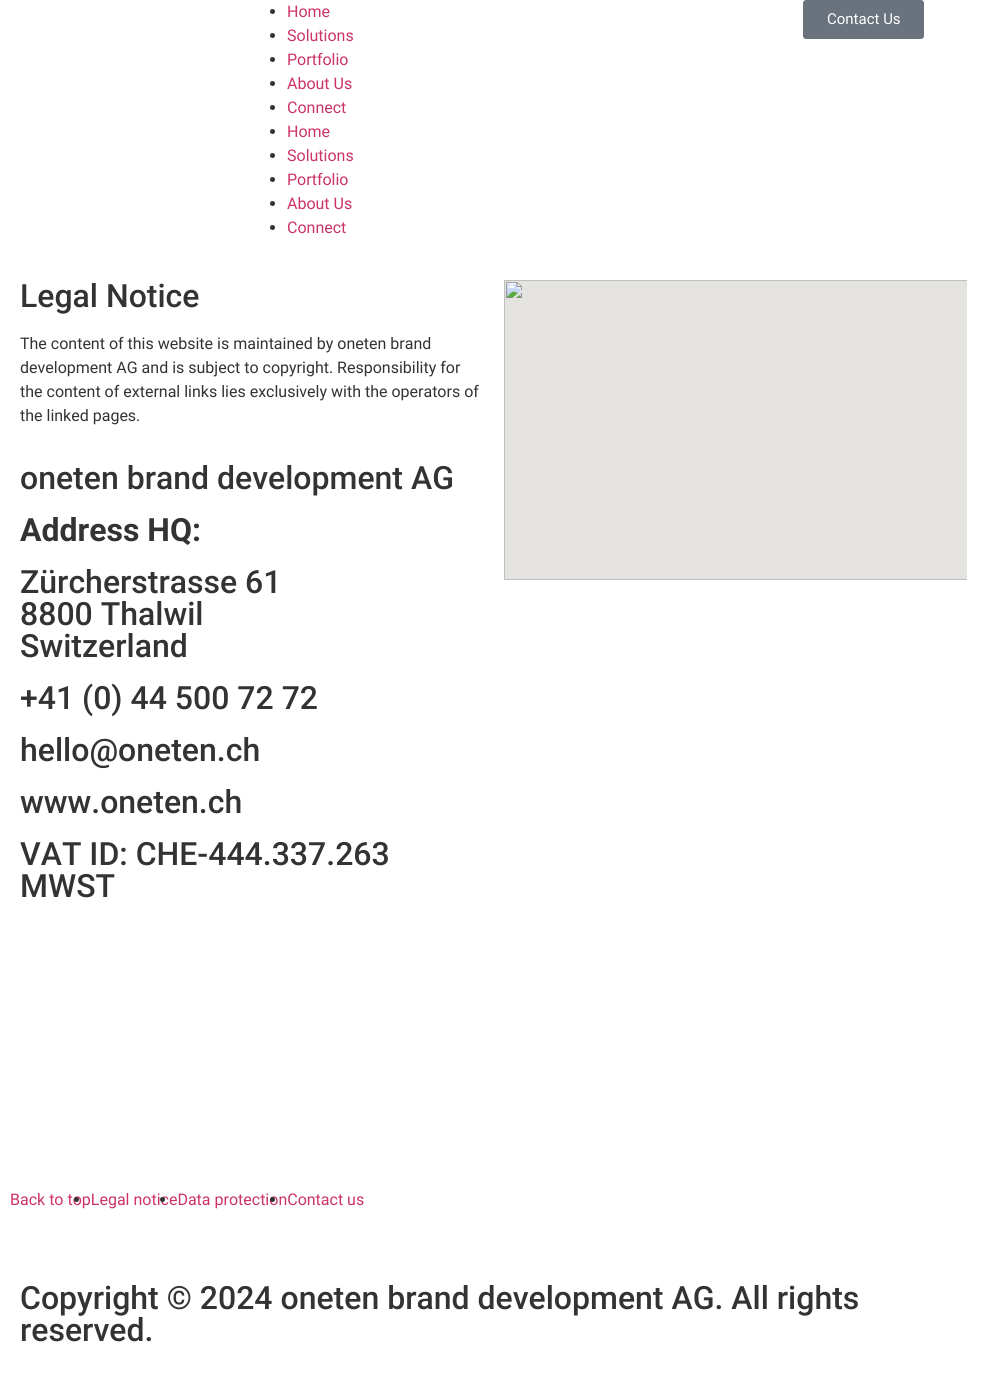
#include <cairo.h>
#include <math.h>
#include <stddef.h>

static cairo_t *c;
static void C(unsigned color){cairo_set_source_rgb(c, (color >> 16) / 255.0, (color >> 8 & 255) / 255.0, (color & 255) / 255.0);}
static void F(const char *family, double size, int italic, int bold){cairo_select_font_face(c, family, italic ? CAIRO_FONT_SLANT_ITALIC : CAIRO_FONT_SLANT_NORMAL,bold ? CAIRO_FONT_WEIGHT_BOLD : CAIRO_FONT_WEIGHT_NORMAL);cairo_set_font_size(c, size);}
static void T(double x, double y, const char *s){cairo_move_to(c, x, y);cairo_show_text(c, s);}
static void Q(double x, double y, double w, double h, double r){cairo_new_sub_path(c);cairo_arc(c, x + w - r, y + h - r, r, 0, M_PI / 2);cairo_arc(c, x + r, y + h - r, r, M_PI / 2, M_PI);cairo_arc(c, x + r, y + r, r, M_PI, 1.5 * M_PI);cairo_arc(c, x + w - r, y + r, r, 1.5 * M_PI, 2 * M_PI);cairo_close_path(c);}
static void I(const char *path, double x, double y, double w, double h){cairo_surface_t *image = cairo_image_surface_create_from_png(path);cairo_save(c);cairo_set_source_surface(c, image, x, y);cairo_rectangle(c, x, y, w, h);cairo_fill(c);cairo_restore(c);cairo_surface_destroy(image);}
int main(void) {
cairo_surface_t *surface = cairo_image_surface_create(CAIRO_FORMAT_RGB24, 987, 1376);
c = cairo_create(surface);
cairo_font_options_t *options = cairo_font_options_create();
cairo_font_options_set_hint_metrics(options, CAIRO_HINT_METRICS_OFF);
cairo_font_options_set_hint_style(options, CAIRO_HINT_STYLE_NONE);
cairo_set_font_options(c, options);
cairo_set_miter_limit(c, 4);
C(0xffffff);
cairo_paint(c);
C(0x333333);
cairo_arc(c,272.5,11.5,2.5,0,2 * M_PI);
cairo_fill(c);
F("Roboto",16,0,0);
C(0xcc3366);
T(287,17,"Home");
C(0x333333);
cairo_new_path(c);
cairo_arc(c,272.5,35.5,2.5,0,2 * M_PI);
cairo_fill(c);
C(0xcc3366);
T(287,41,"Solutions");
C(0x333333);
cairo_new_path(c);
cairo_arc(c,272.5,59.5,2.5,0,2 * M_PI);
cairo_fill(c);
C(0xcc3366);
T(287,65,"Portfolio");
C(0x333333);
cairo_new_path(c);
cairo_arc(c,272.5,83.5,2.5,0,2 * M_PI);
cairo_fill(c);
C(0xcc3366);
T(287,89,"About Us");
C(0x333333);
cairo_new_path(c);
cairo_arc(c,272.5,107.5,2.5,0,2 * M_PI);
cairo_fill(c);
C(0xcc3366);
T(287,113,"Connect");
C(0x333333);
cairo_new_path(c);
cairo_arc(c,272.5,131.5,2.5,0,2 * M_PI);
cairo_fill(c);
C(0xcc3366);
T(287,137,"Home");
C(0x333333);
cairo_new_path(c);
cairo_arc(c,272.5,155.5,2.5,0,2 * M_PI);
cairo_fill(c);
C(0xcc3366);
T(287,161,"Solutions");
C(0x333333);
cairo_new_path(c);
cairo_arc(c,272.5,179.5,2.5,0,2 * M_PI);
cairo_fill(c);
C(0xcc3366);
T(287,185,"Portfolio");
C(0x333333);
cairo_new_path(c);
cairo_arc(c,272.5,203.5,2.5,0,2 * M_PI);
cairo_fill(c);
C(0xcc3366);
T(287,209,"About Us");
C(0x333333);
cairo_new_path(c);
cairo_arc(c,272.5,227.5,2.5,0,2 * M_PI);
cairo_fill(c);
C(0xcc3366);
T(287,233,"Connect");
C(0x69727d);
Q(803,0,121,39,3);
cairo_fill(c);
F("Roboto",15,0,0);
C(0xffffff);
T(827,24,"Contact Us");
F("Roboto Medium",32,0,0);
C(0x333333);
T(20,307,"Legal Notice");
F("Roboto",16,0,0);
T(20,349,"The content of this website is maintained by oneten brand");
T(20,373,"development AG and is subject to copyright. Responsibility for");
T(20,397,"the content of external links lies exclusively with the operators of");
T(20,421,"the linked pages.");
F("Roboto Medium",32,0,0);
T(20,489,"oneten brand development AG");
F("Roboto",32,0,1);
T(20,541,"Address HQ:");
F("Roboto Medium",32,0,0);
T(20,593,"Zürcherstrasse 61");
T(20,625,"8800 Thalwil");
T(20,657,"Switzerland");
T(20,709,"+41 (0) 44 500 72 72");
T(20,761,"hello@oneten.ch");
T(20,813,"www.oneten.ch");
T(20,865,"VAT ID: CHE-444.337.263");
T(20,897,"MWST");
I("1.png",504,280,463,300);
F("Roboto",16,0,0);
C(0xcc3366);
T(10,1205,"Back to topLegal noticeData protectionContact us");
C(0x333333);
cairo_new_path(c);
cairo_arc(c,76.5,1199.5,2.5,0,2 * M_PI);
cairo_fill(c);
cairo_arc(c,162.5,1199.5,2.5,0,2 * M_PI);
cairo_fill(c);
cairo_arc(c,272.5,1199.5,2.5,0,2 * M_PI);
cairo_fill(c);
F("Roboto Medium",32,0,0);
T(20,1309,"Copyright © 2024 oneten brand development AG. All rights");
T(20,1341,"reserved.");
cairo_surface_write_to_png(surface, "o.png");
cairo_font_options_destroy(options);
cairo_destroy(c);
cairo_surface_destroy(surface);
return 0;
}
